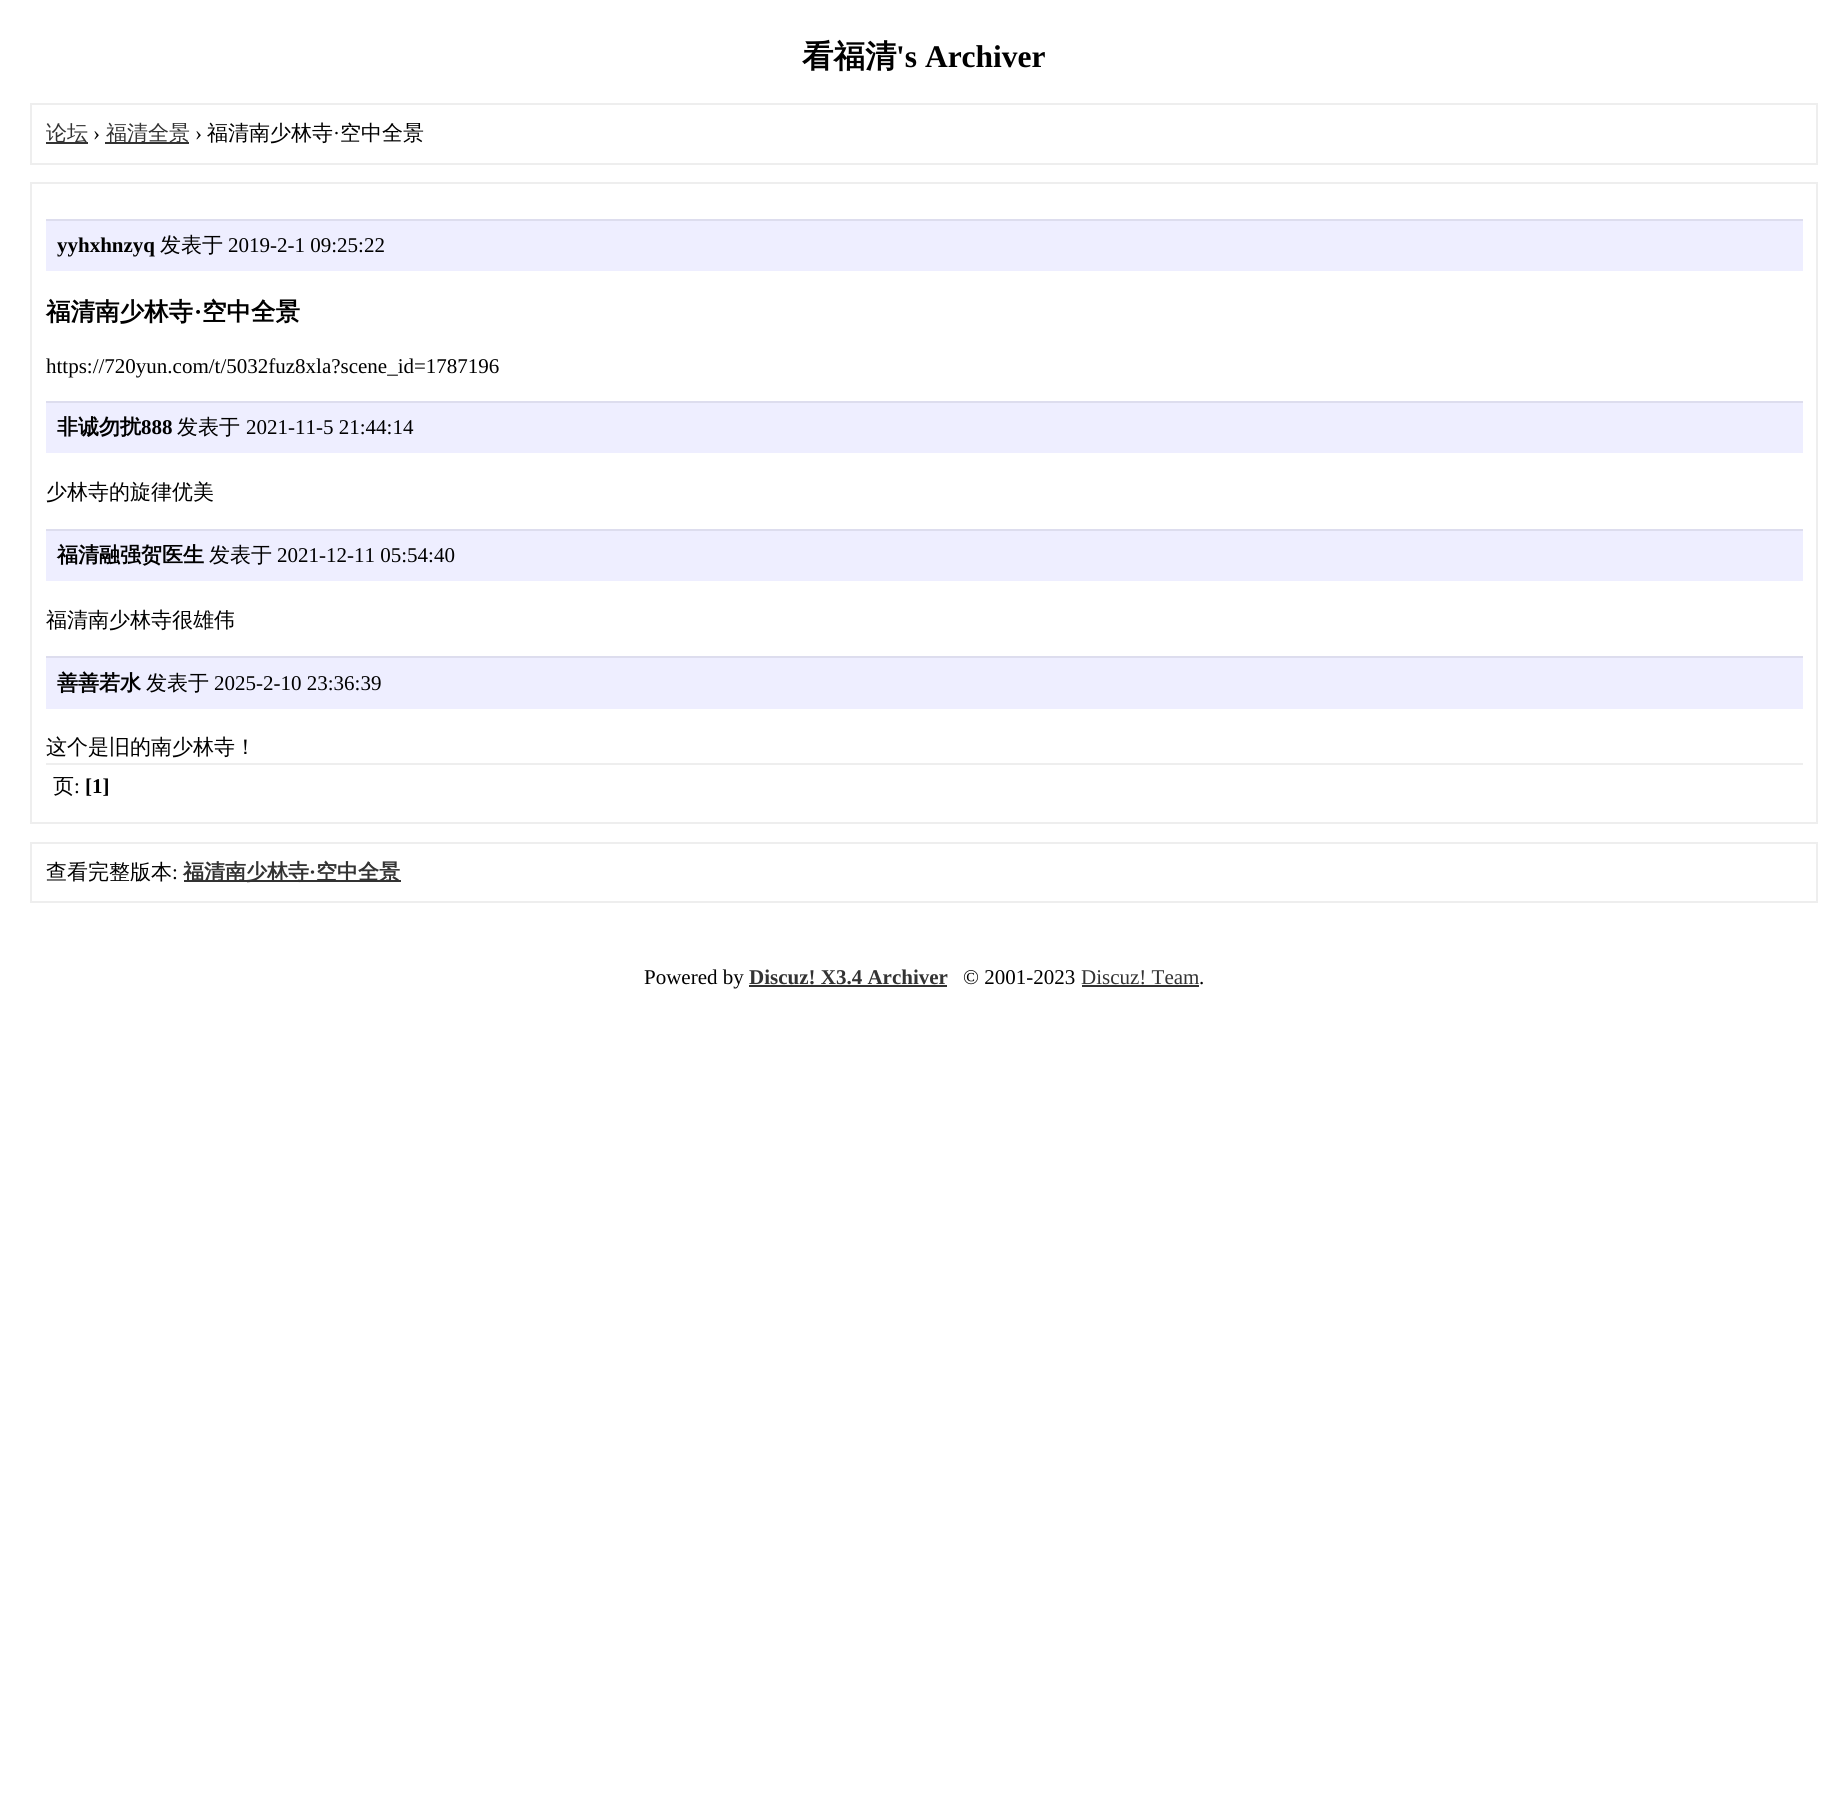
#include <cairo.h>
#include <math.h>
#include <stddef.h>

static cairo_t *c;
static void C(unsigned color){cairo_set_source_rgb(c, (color >> 16) / 255.0, (color >> 8 & 255) / 255.0, (color & 255) / 255.0);}
static void F(const char *family, double size, int italic, int bold){cairo_select_font_face(c, family, italic ? CAIRO_FONT_SLANT_ITALIC : CAIRO_FONT_SLANT_NORMAL,bold ? CAIRO_FONT_WEIGHT_BOLD : CAIRO_FONT_WEIGHT_NORMAL);cairo_set_font_size(c, size);}
static void T(double x, double y, const char *s){cairo_move_to(c, x, y);cairo_show_text(c, s);}
static void R(double x, double y, double w, double h){cairo_rectangle(c, x, y, w, h);cairo_fill(c);}
int main(void) {
cairo_surface_t *surface = cairo_image_surface_create(CAIRO_FORMAT_RGB24, 1847, 1813);
c = cairo_create(surface);
cairo_font_options_t *options = cairo_font_options_create();
cairo_font_options_set_hint_metrics(options, CAIRO_HINT_METRICS_OFF);
cairo_font_options_set_hint_style(options, CAIRO_HINT_STYLE_NONE);
cairo_set_font_options(c, options);
cairo_set_miter_limit(c, 4);
C(0xffffff);
cairo_paint(c);
F("WenQuanYi Zen Hei",31.5,0,1);
C(0x000000);
T(802,67,"看福清");
F("Liberation Serif",31.5,0,1);
T(896,67,"'s Archiver");
cairo_rectangle(c,31,104,1786,60);
C(0xeeeeee);
cairo_stroke(c);
C(0x333333);
R(46,142,42,2);
F("WenQuanYi Zen Hei Medium",21,0,0);
T(46,140,"论坛");
F("Liberation Serif",21,0,0);
C(0x000000);
T(93,140,"›");
C(0x333333);
R(105,142,84,2);
F("WenQuanYi Zen Hei Medium",21,0,0);
T(106,140,"福清全景");
F("Liberation Serif",21,0,0);
C(0x000000);
T(195,140,"›");
F("WenQuanYi Zen Hei Medium",21,0,0);
T(207,140,"福清南少林寺");
F("Liberation Serif",21,0,0);
T(333,140,"·");
F("WenQuanYi Zen Hei Medium",21,0,0);
T(340,140,"空中全景");
cairo_rectangle(c,31,183,1786,640);
C(0xeeeeee);
cairo_stroke(c);
C(0xeeeeff);
R(46,221,1757,50);
C(0xddddee);
R(46,219,1757,2);
F("Liberation Serif",21,0,1);
C(0x000000);
T(57,252,"yyhxhnzyq");
F("WenQuanYi Zen Hei Medium",21,0,0);
T(160,252,"发表于");
F("Liberation Serif",21,0,0);
T(228,252,"2019-2-1 09:25:22");
F("WenQuanYi Zen Hei",24.5,0,1);
T(46,320,"福清南少林寺");
F("Liberation Serif",24.5,0,1);
T(194,320,"·");
F("WenQuanYi Zen Hei",24.5,0,1);
T(202,320,"空中全景");
F("Liberation Serif",21,0,0);
T(46,373,"https://720yun.com/t/5032fuz8xla?scene_id=1787196");
C(0xeeeeff);
R(46,403,1757,50);
C(0xddddee);
R(46,401,1757,2);
F("WenQuanYi Zen Hei",21,0,1);
C(0x000000);
T(57,434,"非诚勿扰");
F("Liberation Serif",21,0,1);
T(141,434,"888");
F("WenQuanYi Zen Hei Medium",21,0,0);
T(177,434,"发表于");
F("Liberation Serif",21,0,0);
T(246,434,"2021-11-5 21:44:14");
F("WenQuanYi Zen Hei Medium",21,0,0);
T(46,499,"少林寺的旋律优美");
C(0xeeeeff);
R(46,531,1757,50);
C(0xddddee);
R(46,529,1757,2);
F("WenQuanYi Zen Hei",21,0,1);
C(0x000000);
T(57,562,"福清融强贺医生");
F("WenQuanYi Zen Hei Medium",21,0,0);
T(209,562,"发表于");
F("Liberation Serif",21,0,0);
T(277,562,"2021-12-11 05:54:40");
F("WenQuanYi Zen Hei Medium",21,0,0);
T(46,627,"福清南少林寺很雄伟");
C(0xeeeeff);
R(46,658,1757,51);
C(0xddddee);
R(46,656,1757,2);
F("WenQuanYi Zen Hei",21,0,1);
C(0x000000);
T(57,690,"善善若水");
F("WenQuanYi Zen Hei Medium",21,0,0);
T(146,690,"发表于");
F("Liberation Serif",21,0,0);
T(214,690,"2025-2-10 23:36:39");
F("WenQuanYi Zen Hei Medium",21,0,0);
T(46,754,"这个是旧的南少林寺！");
C(0xeeeeee);
R(46,763,1757,2);
C(0x000000);
T(53,793,"页");
F("Liberation Serif",21,0,0);
T(74,793,":");
F("Liberation Serif",21,0,1);
T(85,793,"[1]");
cairo_rectangle(c,31,843,1786,59);
C(0xeeeeee);
cairo_stroke(c);
F("WenQuanYi Zen Hei Medium",21,0,0);
C(0x000000);
T(46,879,"查看完整版本");
F("Liberation Serif",21,0,0);
T(172,879,":");
C(0x333333);
R(184,880,217,2);
F("WenQuanYi Zen Hei",21,0,1);
T(183,879,"福清南少林寺");
F("Liberation Serif",21,0,1);
T(309,879,"·");
F("WenQuanYi Zen Hei",21,0,1);
T(316,879,"空中全景");
F("Liberation Serif",21,0,0);
C(0x000000);
T(644,984,"Powered by");
F("Liberation Serif",21,0,1);
C(0x333333);
T(749,984,"Discuz! X3.4 Archiver");
R(749,985,198,2);
F("Liberation Serif",21,0,0);
C(0x000000);
T(963,984,"© 2001-2023");
C(0x333333);
T(1081,984,"Discuz! Team");
R(1082,985,117,2);
C(0x000000);
T(1199,984,".");
cairo_surface_write_to_png(surface, "o.png");
cairo_font_options_destroy(options);
cairo_destroy(c);
cairo_surface_destroy(surface);
return 0;
}
